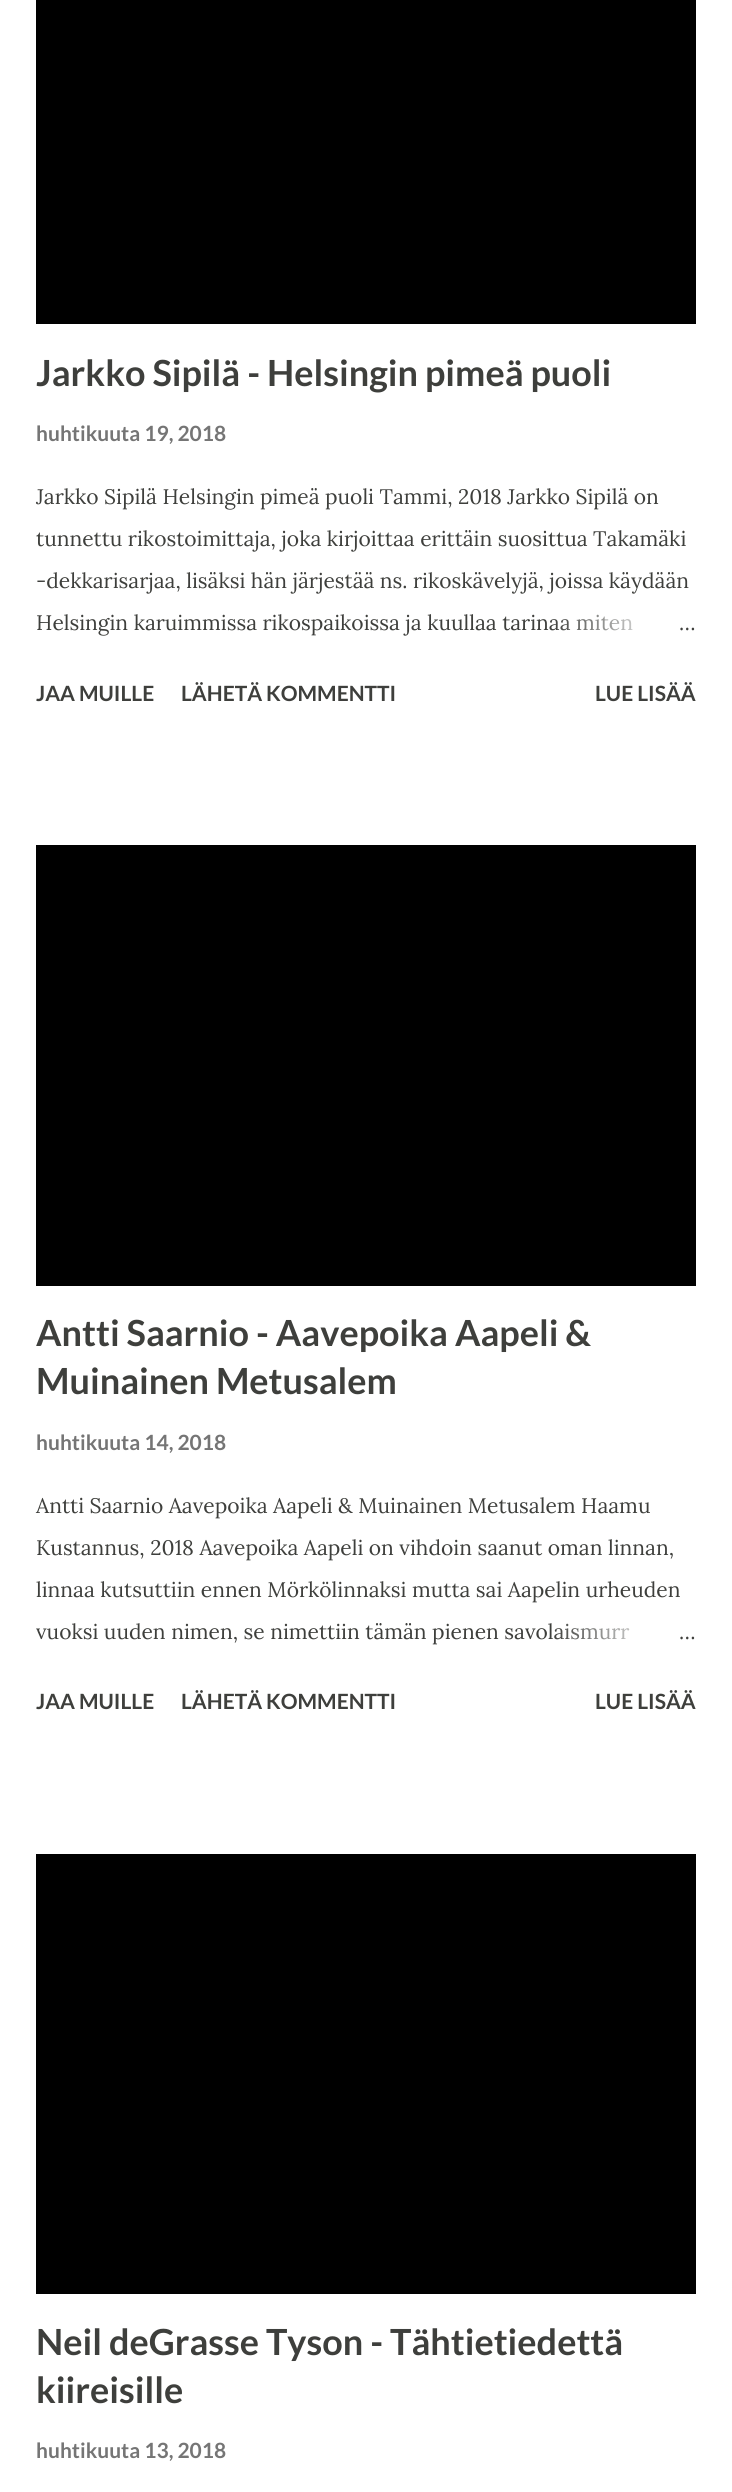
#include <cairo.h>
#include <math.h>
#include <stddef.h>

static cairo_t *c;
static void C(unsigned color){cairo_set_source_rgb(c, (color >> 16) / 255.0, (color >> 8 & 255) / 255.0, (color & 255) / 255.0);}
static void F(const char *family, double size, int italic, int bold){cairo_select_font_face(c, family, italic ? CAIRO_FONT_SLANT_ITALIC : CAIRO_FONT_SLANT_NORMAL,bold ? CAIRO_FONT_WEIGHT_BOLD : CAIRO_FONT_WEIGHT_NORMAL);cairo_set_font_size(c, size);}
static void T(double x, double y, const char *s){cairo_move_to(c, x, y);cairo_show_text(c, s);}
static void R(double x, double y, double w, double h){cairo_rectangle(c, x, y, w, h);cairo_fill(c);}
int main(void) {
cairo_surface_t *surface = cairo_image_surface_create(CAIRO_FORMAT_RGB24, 732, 2492);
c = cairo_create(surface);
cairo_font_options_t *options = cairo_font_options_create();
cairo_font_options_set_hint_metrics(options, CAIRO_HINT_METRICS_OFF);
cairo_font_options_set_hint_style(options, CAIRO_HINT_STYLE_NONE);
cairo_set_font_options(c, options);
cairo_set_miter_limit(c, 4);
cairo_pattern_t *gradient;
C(0xffffff);
cairo_paint(c);
C(0x000000);
R(36,0,660,324);
F("Lato",36,0,1);
C(0x3e3f3c);
T(36,386,"Jarkko Sipilä - Helsingin pimeä puoli");
F("Lato",21,0,1);
C(0x757575);
T(36,441,"huhtikuuta 19, 2018");
F("Lora",21,0,0);
C(0x3e3f3c);
T(36,504,"Jarkko Sipilä Helsingin pimeä puoli Tammi, 2018 Jarkko Sipilä on");
T(36,546,"tunnettu rikostoimittaja, joka kirjoittaa erittäin suosittua Takamäki");
T(36,588,"-dekkarisarjaa, lisäksi hän järjestää ns. rikoskävelyjä, joissa käydään");
T(36,630,"Helsingin karuimmissa rikospaikoissa ja kuullaa tarinaa miten");
gradient = cairo_pattern_create_linear(696,623,552,623);
cairo_pattern_add_color_stop_rgba(gradient,0,1,1,1,1);
cairo_pattern_add_color_stop_rgba(gradient,.2,1,1,1,1);
cairo_pattern_add_color_stop_rgba(gradient,1,1,1,1,0);
cairo_set_source(c,gradient);
cairo_pattern_destroy(gradient);
R(554,614,79,17);
C(0x3e3f3c);
T(679,630,"…");
F("Lato",21,0,1);
T(36,701,"JAA MUILLE");
T(181,701,"LÄHETÄ KOMMENTTI");
T(595,701,"LUE LISÄÄ");
C(0x000000);
R(36,845,660,441);
F("Lato",36,0,1);
C(0x3e3f3c);
T(36,1346,"Antti Saarnio - Aavepoika Aapeli &");
T(36,1394,"Muinainen Metusalem");
F("Lato",21,0,1);
C(0x757575);
T(36,1450,"huhtikuuta 14, 2018");
F("Lora",21,0,0);
C(0x3e3f3c);
T(36,1513,"Antti Saarnio Aavepoika Aapeli & Muinainen Metusalem Haamu");
T(36,1555,"Kustannus, 2018 Aavepoika Aapeli on vihdoin saanut oman linnan,");
T(36,1597,"linnaa kutsuttiin ennen Mörkölinnaksi mutta sai Aapelin urheuden");
T(36,1639,"vuoksi uuden nimen, se nimettiin tämän pienen savolaismurr");
gradient = cairo_pattern_create_linear(696,1632,552,1632);
cairo_pattern_add_color_stop_rgba(gradient,0,1,1,1,1);
cairo_pattern_add_color_stop_rgba(gradient,.2,1,1,1,1);
cairo_pattern_add_color_stop_rgba(gradient,1,1,1,1,0);
cairo_set_source(c,gradient);
cairo_pattern_destroy(gradient);
R(554,1623,76,17);
C(0x3e3f3c);
T(679,1639,"…");
F("Lato",21,0,1);
T(36,1709,"JAA MUILLE");
T(181,1709,"LÄHETÄ KOMMENTTI");
T(595,1709,"LUE LISÄÄ");
C(0x000000);
R(36,1854,660,440);
F("Lato",36,0,1);
C(0x3e3f3c);
T(36,2355,"Neil deGrasse Tyson - Tähtietiedettä");
T(36,2403,"kiireisille");
F("Lato",21,0,1);
C(0x757575);
T(36,2458,"huhtikuuta 13, 2018");
cairo_surface_write_to_png(surface, "o.png");
cairo_font_options_destroy(options);
cairo_destroy(c);
cairo_surface_destroy(surface);
return 0;
}
